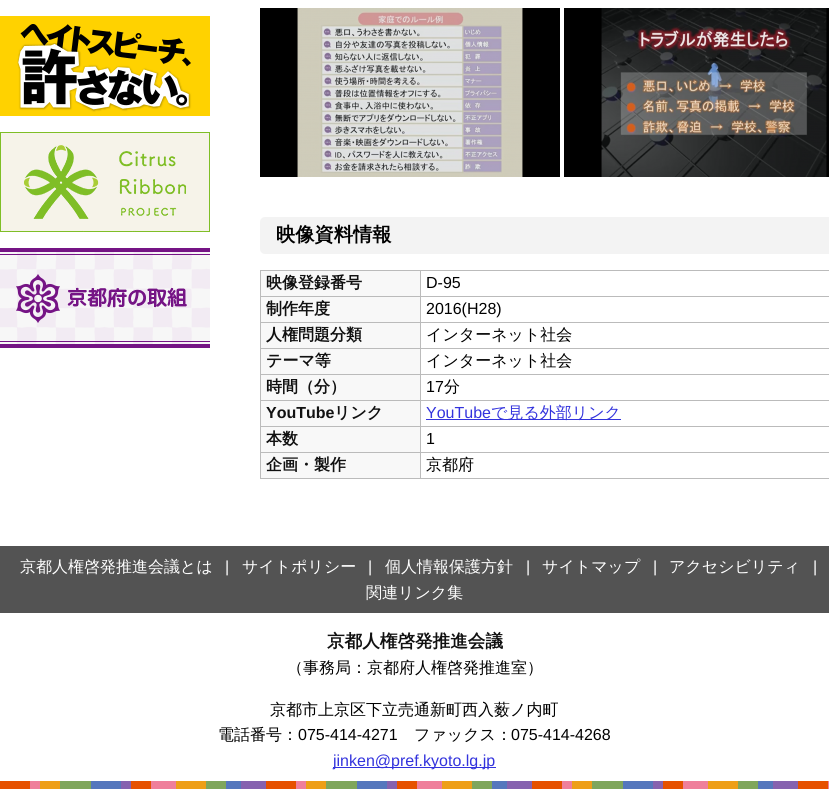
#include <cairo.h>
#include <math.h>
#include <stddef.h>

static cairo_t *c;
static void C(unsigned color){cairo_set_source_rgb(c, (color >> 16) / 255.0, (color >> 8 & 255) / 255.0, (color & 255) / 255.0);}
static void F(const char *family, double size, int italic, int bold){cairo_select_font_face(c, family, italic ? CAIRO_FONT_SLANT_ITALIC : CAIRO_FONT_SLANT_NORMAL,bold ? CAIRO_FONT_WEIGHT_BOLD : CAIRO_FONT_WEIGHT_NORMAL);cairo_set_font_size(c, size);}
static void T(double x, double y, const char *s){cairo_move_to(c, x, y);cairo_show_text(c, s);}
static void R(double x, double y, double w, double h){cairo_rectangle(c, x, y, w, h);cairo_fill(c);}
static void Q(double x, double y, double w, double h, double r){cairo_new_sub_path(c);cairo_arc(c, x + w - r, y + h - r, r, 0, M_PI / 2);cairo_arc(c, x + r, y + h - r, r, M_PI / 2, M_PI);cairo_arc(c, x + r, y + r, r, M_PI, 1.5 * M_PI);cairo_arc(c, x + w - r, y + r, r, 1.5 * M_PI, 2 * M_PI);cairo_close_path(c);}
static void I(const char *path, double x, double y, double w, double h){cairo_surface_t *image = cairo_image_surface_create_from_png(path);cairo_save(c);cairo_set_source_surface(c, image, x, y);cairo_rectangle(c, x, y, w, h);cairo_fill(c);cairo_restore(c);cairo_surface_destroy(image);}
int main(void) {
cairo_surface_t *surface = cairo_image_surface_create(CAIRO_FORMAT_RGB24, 829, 789);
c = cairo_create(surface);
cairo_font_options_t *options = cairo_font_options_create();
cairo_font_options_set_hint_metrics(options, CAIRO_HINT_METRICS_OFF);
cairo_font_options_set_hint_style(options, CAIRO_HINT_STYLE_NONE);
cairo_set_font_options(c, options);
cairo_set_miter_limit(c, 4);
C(0xffffff);
cairo_paint(c);
I("1.png",0,781,829,8);
I("2.png",0,16,210,100);
I("3.png",0,132,210,100);
I("4.png",0,248,210,100);
I("5.png",260,8,300,169);
I("6.png",564,8,265,169);
C(0xf3f3f3);
Q(260,217,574,37,5);
cairo_fill(c);
F("WenQuanYi Zen Hei",19.25,0,1);
C(0x000000);
T(276,241,"映像資料情報");
C(0xbbbbbb);
R(260,270,569,1);
R(260,270,1,209);
C(0xf8f8f8);
R(261,271,159,25);
C(0xbbbbbb);
R(420,271,1,208);
R(261,296,568,1);
F("WenQuanYi Zen Hei",16,0,1);
C(0x111111);
T(266,288,"映像登録番号");
F("Liberation Sans",16,0,0);
C(0x000000);
T(426,288,"D-95");
C(0xf8f8f8);
R(261,297,159,25);
C(0xbbbbbb);
R(261,322,568,1);
F("WenQuanYi Zen Hei",16,0,1);
C(0x111111);
T(266,314,"制作年度");
F("Liberation Sans",16,0,0);
C(0x000000);
T(426,314,"2016(H28)");
C(0xf8f8f8);
R(261,323,159,25);
C(0xbbbbbb);
R(261,348,568,1);
F("WenQuanYi Zen Hei",16,0,1);
C(0x111111);
T(266,340,"人権問題分類");
F("WenQuanYi Zen Hei Medium",16,0,0);
C(0x000000);
T(426,340,"インターネット社会");
C(0xf8f8f8);
R(261,349,159,25);
C(0xbbbbbb);
R(261,374,568,1);
F("WenQuanYi Zen Hei",16,0,1);
C(0x111111);
T(266,366,"テーマ等");
F("WenQuanYi Zen Hei Medium",16,0,0);
C(0x000000);
T(426,366,"インターネット社会");
C(0xf8f8f8);
R(261,375,159,25);
C(0xbbbbbb);
R(261,400,568,1);
F("WenQuanYi Zen Hei",16,0,1);
C(0x111111);
T(266,392,"時間（分）");
F("Liberation Sans",16,0,0);
C(0x000000);
T(426,392,"17");
F("WenQuanYi Zen Hei Medium",16,0,0);
T(444,392,"分");
C(0xf8f8f8);
R(261,401,159,25);
C(0xbbbbbb);
R(261,426,568,1);
F("Liberation Sans",16,0,1);
C(0x111111);
T(266,418,"YouTube");
F("WenQuanYi Zen Hei",16,0,1);
T(334,418,"リンク");
F("Liberation Sans",16,0,0);
C(0x3333dd);
T(426,418,"YouTube");
R(426,419,195,1);
F("WenQuanYi Zen Hei Medium",16,0,0);
T(491,418,"で見る外部リンク");
C(0xf8f8f8);
R(261,427,159,25);
C(0xbbbbbb);
R(261,452,568,1);
F("WenQuanYi Zen Hei",16,0,1);
C(0x111111);
T(266,444,"本数");
F("Liberation Sans",16,0,0);
C(0x000000);
T(426,444,"1");
C(0xf8f8f8);
R(261,453,159,25);
C(0xbbbbbb);
R(261,478,568,1);
F("WenQuanYi Zen Hei",16,0,1);
C(0x111111);
T(266,470,"企画・製作");
F("WenQuanYi Zen Hei Medium",16,0,0);
C(0x000000);
T(426,470,"京都府");
C(0x535353);
R(0,546,829,67);
C(0xffffff);
T(20,572,"京都人権啓発推進会議とは");
F("Liberation Sans",16,0,0);
T(225,572,"|");
F("WenQuanYi Zen Hei Medium",16,0,0);
T(242,572,"サイトポリシー");
F("Liberation Sans",16,0,0);
T(368,572,"|");
F("WenQuanYi Zen Hei Medium",16,0,0);
T(385,572,"個人情報保護方針");
F("Liberation Sans",16,0,0);
T(526,572,"|");
F("WenQuanYi Zen Hei Medium",16,0,0);
T(542,572,"サイトマップ");
F("Liberation Sans",16,0,0);
T(653,572,"|");
F("WenQuanYi Zen Hei Medium",16,0,0);
T(669,572,"アクセシビリティ");
F("Liberation Sans",16,0,0);
T(813,572,"|");
F("WenQuanYi Zen Hei Medium",16,0,0);
T(366,598,"関連リンク集");
F("WenQuanYi Zen Hei",17.6,0,1);
C(0x111111);
T(327,647,"京都人権啓発推進会議");
F("WenQuanYi Zen Hei Medium",16,0,0);
C(0x000000);
T(287,673,"（事務局：京都府人権啓発推進室）");
T(270,715,"京都市上京区下立売通新町西入薮ノ内町");
T(218,740,"電話番号：");
F("Liberation Sans",16,0,0);
T(298,740,"075-414-4271");
F("WenQuanYi Zen Hei Medium",16,0,0);
T(414,740,"ファックス：");
F("Liberation Sans",16,0,0);
T(511,740,"075-414-4268");
C(0x3333dd);
R(333,767,163,1);
T(333,766,"jinken@pref.kyoto.lg.jp");
cairo_surface_write_to_png(surface, "o.png");
cairo_font_options_destroy(options);
cairo_destroy(c);
cairo_surface_destroy(surface);
return 0;
}
